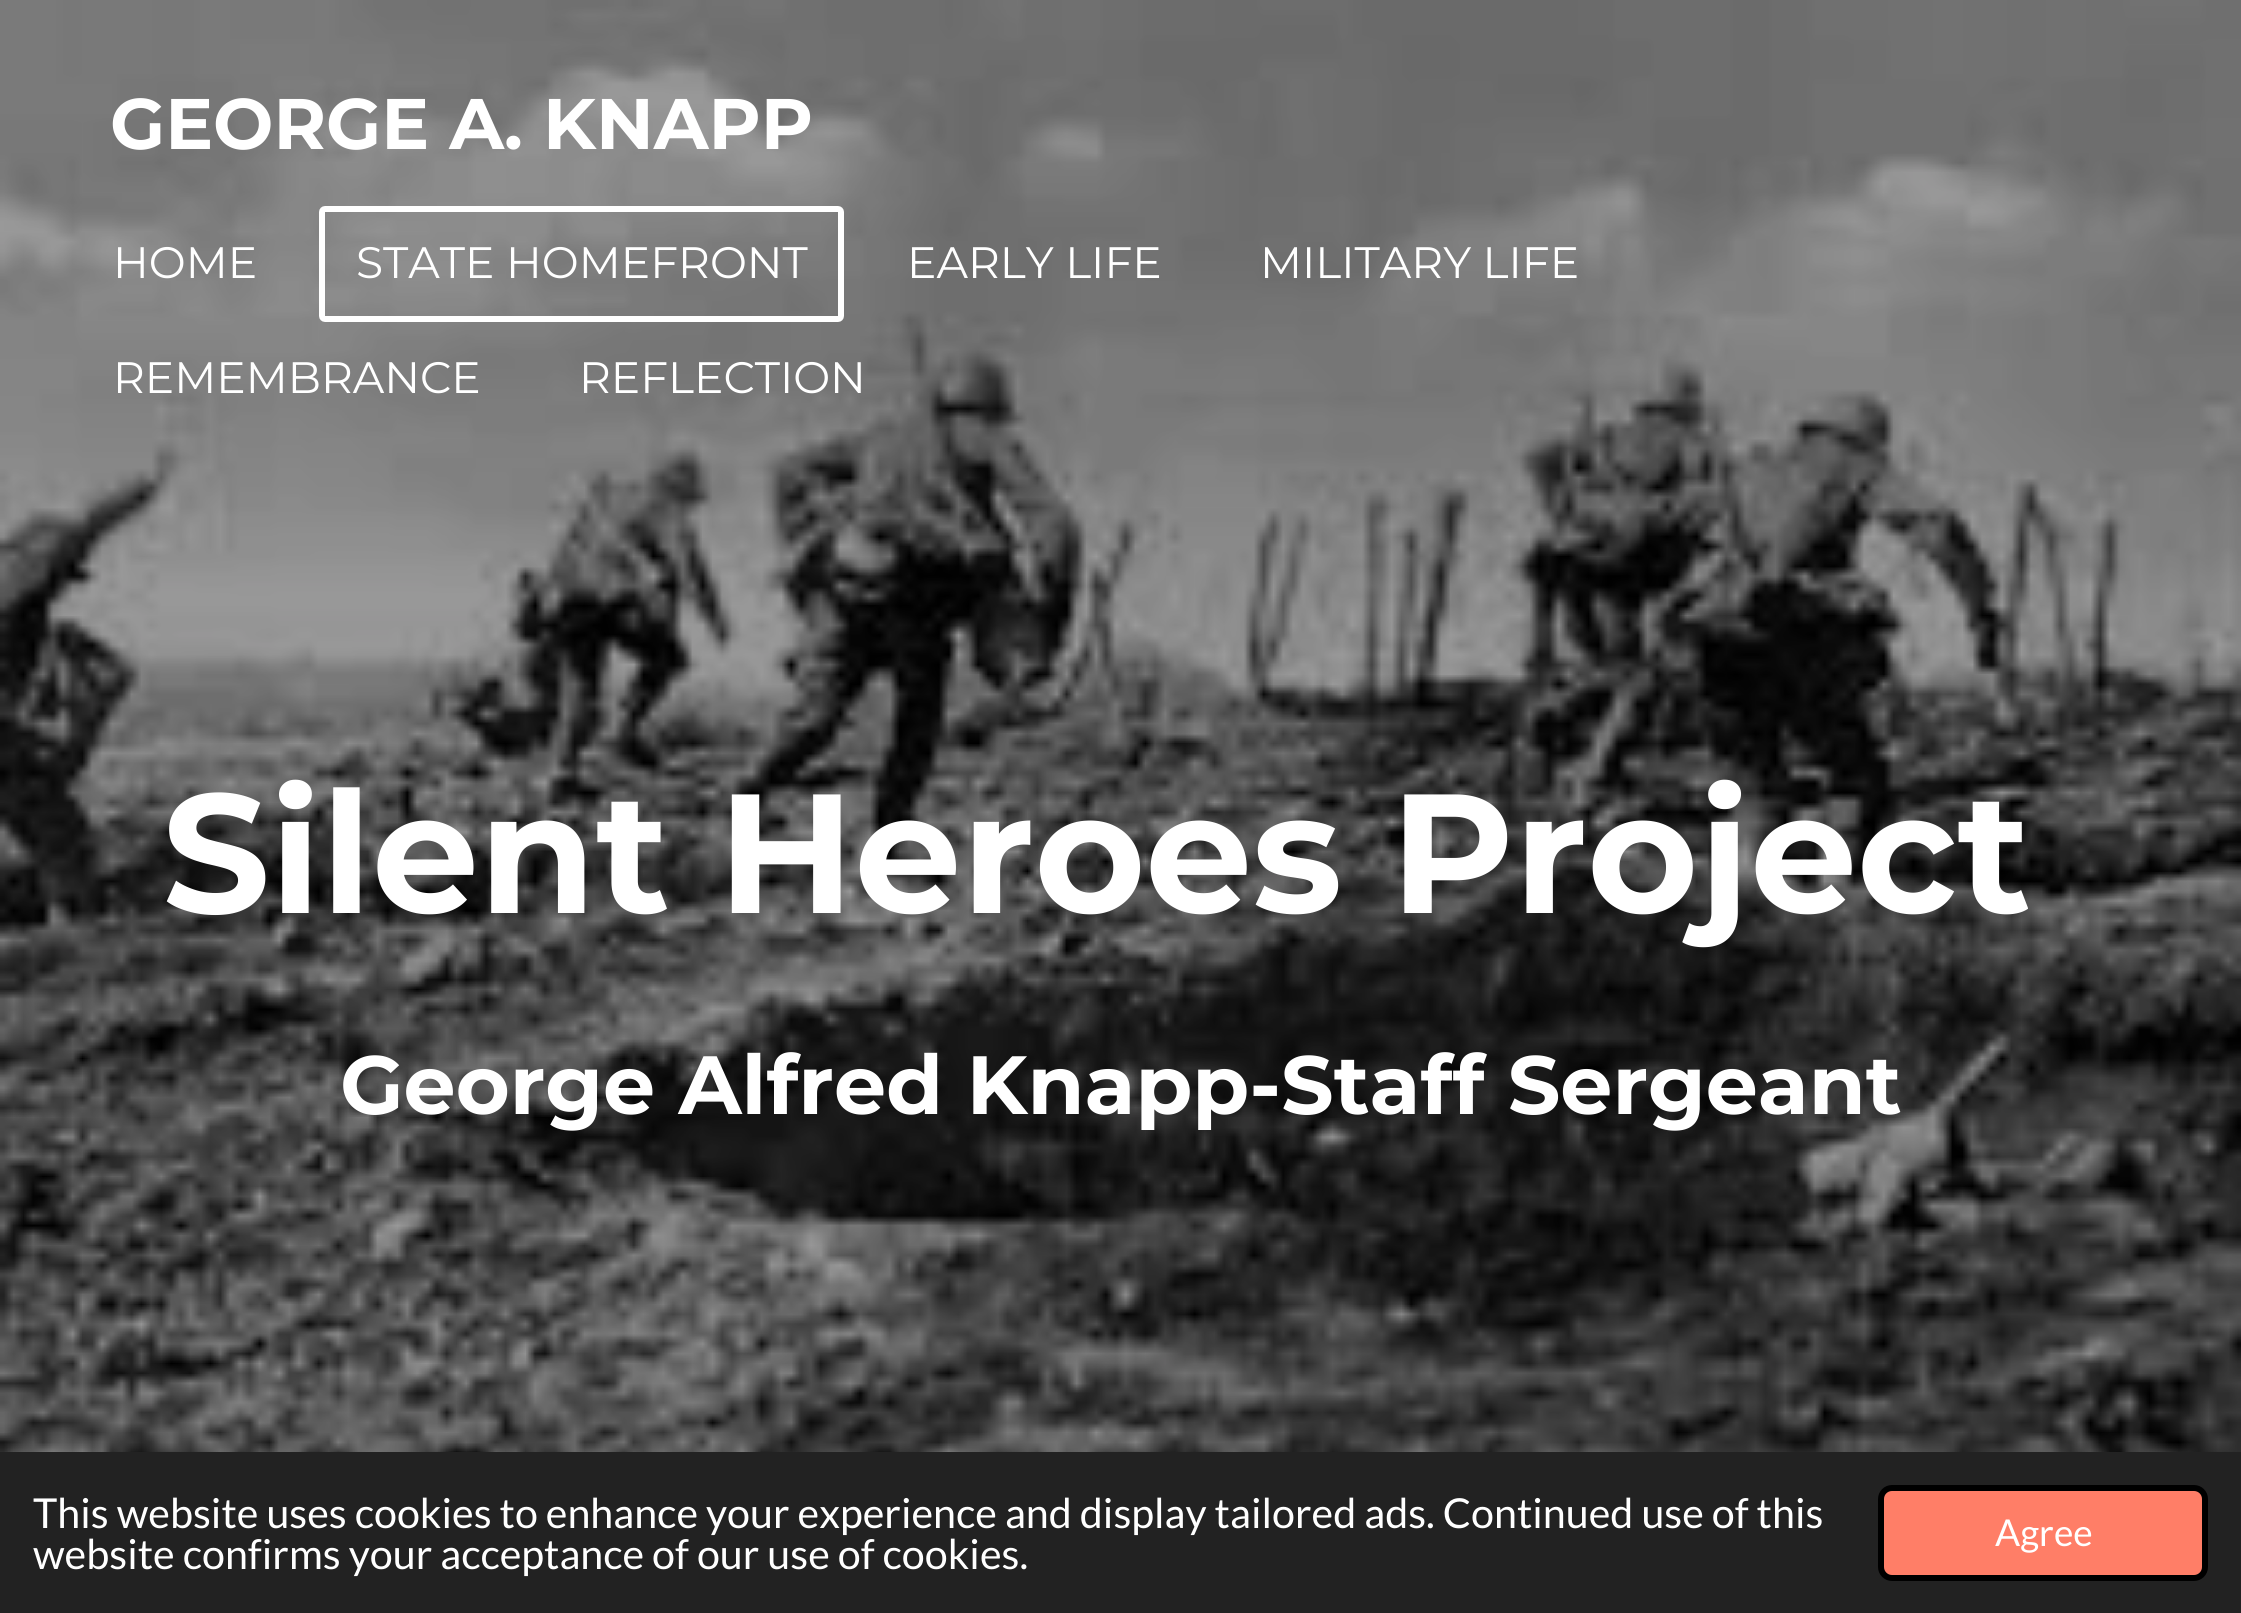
#include <cairo.h>
#include <math.h>
#include <stddef.h>

static cairo_t *c;
static void C(unsigned color){cairo_set_source_rgb(c, (color >> 16) / 255.0, (color >> 8 & 255) / 255.0, (color & 255) / 255.0);}
static void F(const char *family, double size, int italic, int bold){cairo_select_font_face(c, family, italic ? CAIRO_FONT_SLANT_ITALIC : CAIRO_FONT_SLANT_NORMAL,bold ? CAIRO_FONT_WEIGHT_BOLD : CAIRO_FONT_WEIGHT_NORMAL);cairo_set_font_size(c, size);}
static void T(double x, double y, const char *s){cairo_move_to(c, x, y);cairo_show_text(c, s);}
static void R(double x, double y, double w, double h){cairo_rectangle(c, x, y, w, h);cairo_fill(c);}
static void Q(double x, double y, double w, double h, double r){cairo_new_sub_path(c);cairo_arc(c, x + w - r, y + h - r, r, 0, M_PI / 2);cairo_arc(c, x + r, y + h - r, r, M_PI / 2, M_PI);cairo_arc(c, x + r, y + r, r, M_PI, 1.5 * M_PI);cairo_arc(c, x + w - r, y + r, r, 1.5 * M_PI, 2 * M_PI);cairo_close_path(c);}
static void I(const char *path, double x, double y, double w, double h){cairo_surface_t *image = cairo_image_surface_create_from_png(path);cairo_save(c);cairo_set_source_surface(c, image, x, y);cairo_rectangle(c, x, y, w, h);cairo_fill(c);cairo_restore(c);cairo_surface_destroy(image);}
int main(void) {
cairo_surface_t *surface = cairo_image_surface_create(CAIRO_FORMAT_RGB24, 2241, 1613);
c = cairo_create(surface);
cairo_font_options_t *options = cairo_font_options_create();
cairo_font_options_set_hint_metrics(options, CAIRO_HINT_METRICS_OFF);
cairo_font_options_set_hint_style(options, CAIRO_HINT_STYLE_NONE);
cairo_set_font_options(c, options);
cairo_set_miter_limit(c, 4);
C(0xffffff);
cairo_paint(c);
I("1.png",0,0,2241,1452);
F("Montserrat",71.5,0,1);
C(0xffffff);
T(110,149,"GEORGE A. KNAPP");
F("Montserrat",44,0,0);
T(113,278,"HOME");
Q(322,209,519,110,3);
cairo_set_line_width(c,6);
cairo_stroke(c);
T(356,278,"STATE HOMEFRONT");
T(907,278,"EARLY LIFE");
T(1260,278,"MILITARY LIFE");
T(113,393,"REMEMBRANCE");
T(579,393,"REFLECTION");
F("Montserrat",169.4,0,1);
T(162,913,"Silent Heroes Project");
F("Montserrat",82.5,0,1);
T(340,1114,"George Alfred Knapp-Staff Sergeant");
C(0x222222);
R(0,1452,2241,161);
F("Lato",41.25,0,0);
C(0xffffff);
T(33,1528,"This website uses cookies to enhance your experience and display tailored ads. Continued use of this");
T(33,1569,"website confirms your acceptance of our use of cookies.");
C(0xff7e67);
Q(1881,1488,324,90,11);
cairo_fill_preserve(c);
C(0x000000);
cairo_stroke(c);
F("Lato",37,0,0);
C(0xffffff);
T(1995,1546,"Agree");
cairo_surface_write_to_png(surface, "o.png");
cairo_font_options_destroy(options);
cairo_destroy(c);
cairo_surface_destroy(surface);
return 0;
}
